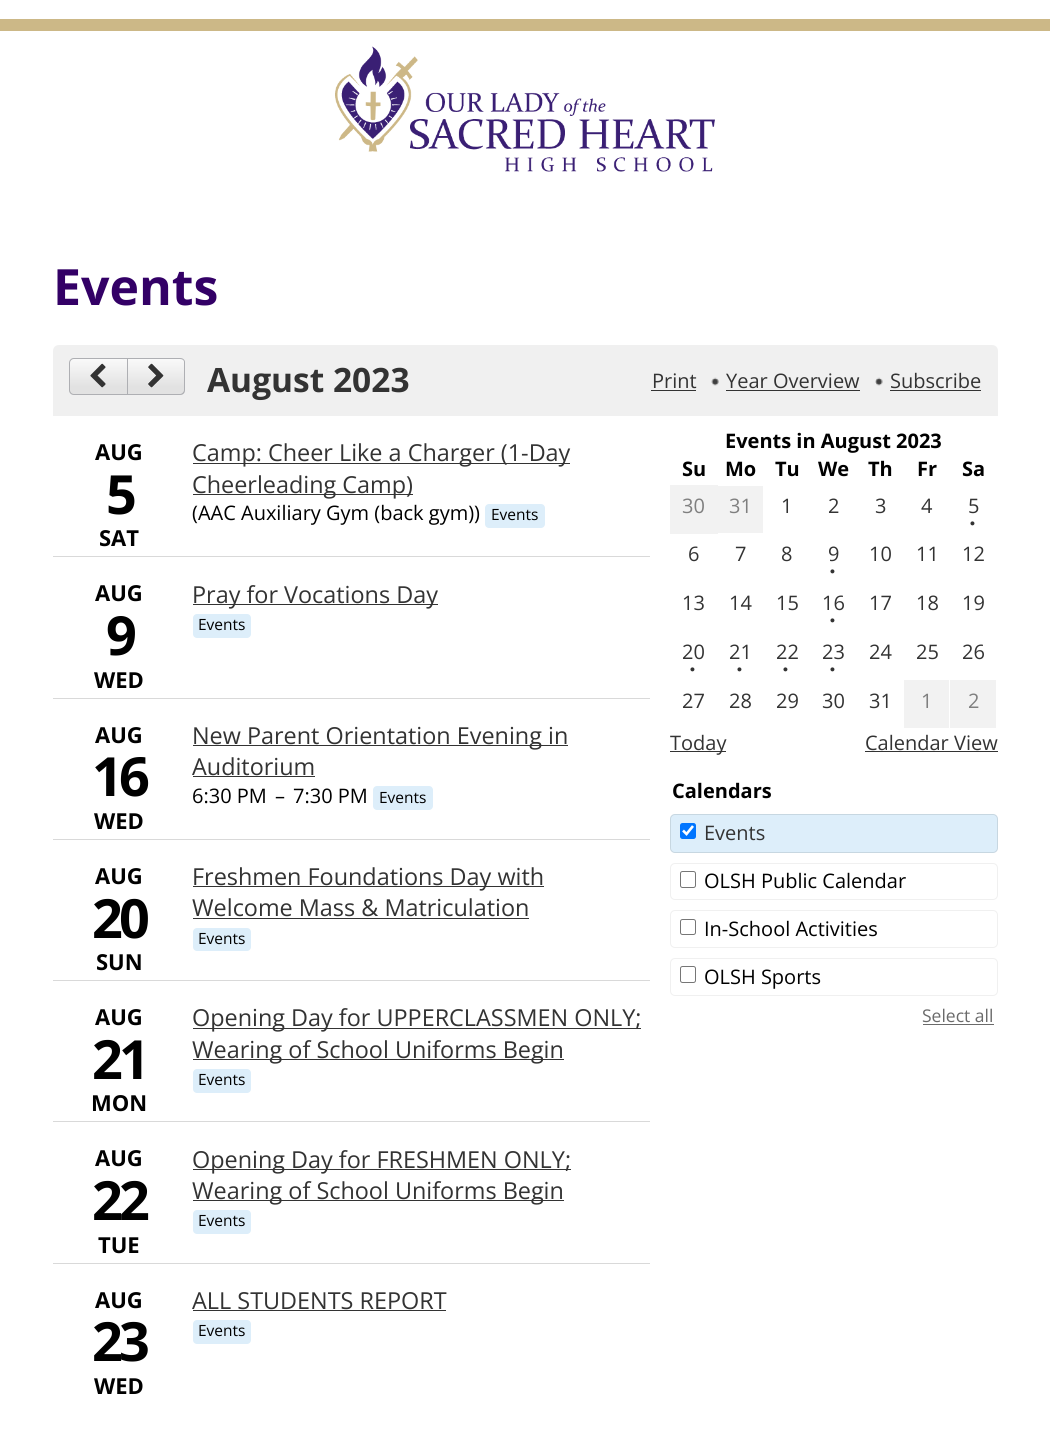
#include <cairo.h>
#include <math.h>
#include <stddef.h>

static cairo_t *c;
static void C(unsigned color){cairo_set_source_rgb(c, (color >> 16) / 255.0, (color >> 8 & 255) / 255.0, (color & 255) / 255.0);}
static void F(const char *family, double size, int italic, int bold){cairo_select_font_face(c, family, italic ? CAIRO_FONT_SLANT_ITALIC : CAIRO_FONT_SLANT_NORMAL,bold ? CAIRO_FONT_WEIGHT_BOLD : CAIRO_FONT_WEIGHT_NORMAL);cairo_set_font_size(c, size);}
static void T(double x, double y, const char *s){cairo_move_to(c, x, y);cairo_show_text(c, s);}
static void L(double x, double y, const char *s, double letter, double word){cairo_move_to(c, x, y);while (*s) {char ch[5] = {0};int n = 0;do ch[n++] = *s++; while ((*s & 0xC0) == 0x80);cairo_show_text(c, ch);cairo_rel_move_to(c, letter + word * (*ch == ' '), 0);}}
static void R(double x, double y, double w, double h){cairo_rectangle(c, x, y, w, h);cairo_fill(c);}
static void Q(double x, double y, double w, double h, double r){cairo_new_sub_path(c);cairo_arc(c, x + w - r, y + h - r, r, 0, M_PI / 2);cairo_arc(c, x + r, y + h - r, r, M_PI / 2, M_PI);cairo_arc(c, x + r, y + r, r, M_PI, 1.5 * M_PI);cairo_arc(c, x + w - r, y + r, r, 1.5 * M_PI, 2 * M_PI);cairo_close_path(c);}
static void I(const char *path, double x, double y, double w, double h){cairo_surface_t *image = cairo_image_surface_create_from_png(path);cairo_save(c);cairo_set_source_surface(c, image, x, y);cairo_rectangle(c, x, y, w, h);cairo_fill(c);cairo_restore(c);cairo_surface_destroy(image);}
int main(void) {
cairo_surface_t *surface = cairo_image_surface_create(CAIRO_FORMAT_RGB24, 1050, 1437);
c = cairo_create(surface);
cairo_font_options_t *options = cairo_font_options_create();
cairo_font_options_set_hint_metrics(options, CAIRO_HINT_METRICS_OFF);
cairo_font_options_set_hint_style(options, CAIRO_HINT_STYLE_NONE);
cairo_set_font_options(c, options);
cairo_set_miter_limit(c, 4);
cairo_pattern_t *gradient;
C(0xffffff);
cairo_paint(c);
C(0xccb887);
R(0,19,1050,12);
I("1.png",335,46,380,126);
F("Open Sans",50,0,1);
C(0x330066);
T(53,305,"Events");
C(0xf0f0f0);
cairo_new_path(c);
cairo_move_to(c,59,345);
cairo_line_to(c,992,345);
cairo_curve_to(c,995.5,345,998,347.5,998,351);
cairo_line_to(c,998,416);
cairo_line_to(c,53,416);
cairo_line_to(c,53,351);
cairo_curve_to(c,53,347.5,55.5,345,59,345);
cairo_close_path(c);
cairo_fill(c);
C(0xe2e2e2);
cairo_new_path(c);
cairo_move_to(c,74,358);
cairo_line_to(c,128,358);
cairo_line_to(c,128,395);
cairo_line_to(c,74,395);
cairo_curve_to(c,71,395,69,393,69,390);
cairo_line_to(c,69,363);
cairo_curve_to(c,69,360,71,358,74,358);
cairo_close_path(c);
cairo_fill(c);
cairo_save(c);
cairo_new_path(c);
cairo_move_to(c,74,358);
cairo_line_to(c,128,358);
cairo_line_to(c,128,395);
cairo_line_to(c,74,395);
cairo_curve_to(c,71,395,69,393,69,390);
cairo_line_to(c,69,363);
cairo_curve_to(c,69,360,71,358,74,358);
cairo_close_path(c);
cairo_clip(c);
gradient = cairo_pattern_create_linear(70,359,70,387);
cairo_pattern_add_color_stop_rgba(gradient,0,1,1,1,.8);
cairo_pattern_add_color_stop_rgba(gradient,1,1,1,1,0);
cairo_set_source(c,gradient);
cairo_pattern_destroy(gradient);
R(69,359,58,27);
cairo_restore(c);
cairo_new_path(c);
cairo_move_to(c,74,358.5);
cairo_line_to(c,127.5,358.5);
cairo_line_to(c,127.5,394.5);
cairo_line_to(c,74,394.5);
cairo_curve_to(c,71.5,394.5,69.5,392.5,69.5,390);
cairo_line_to(c,69.5,363);
cairo_curve_to(c,69.5,360.5,71.5,358.5,74,358.5);
cairo_close_path(c);
C(0xaeafb3);
cairo_set_line_width(c,1);
cairo_stroke(c);
I("2.png",90,363,16,25);
C(0xe2e2e2);
cairo_new_path(c);
cairo_move_to(c,128,358);
cairo_line_to(c,180,358);
cairo_curve_to(c,183,358,185,360,185,363);
cairo_line_to(c,185,390);
cairo_curve_to(c,185,393,183,395,180,395);
cairo_line_to(c,128,395);
cairo_close_path(c);
cairo_fill(c);
cairo_save(c);
cairo_new_path(c);
cairo_move_to(c,128,358);
cairo_line_to(c,180,358);
cairo_curve_to(c,183,358,185,360,185,363);
cairo_line_to(c,185,390);
cairo_curve_to(c,185,393,183,395,180,395);
cairo_line_to(c,128,395);
cairo_close_path(c);
cairo_clip(c);
gradient = cairo_pattern_create_linear(128,359,128,387);
cairo_pattern_add_color_stop_rgba(gradient,0,1,1,1,.8);
cairo_pattern_add_color_stop_rgba(gradient,1,1,1,1,0);
cairo_set_source(c,gradient);
cairo_pattern_destroy(gradient);
R(128,359,57,27);
cairo_restore(c);
C(0xaeafb3);
cairo_set_fill_rule(c,CAIRO_FILL_RULE_EVEN_ODD);
cairo_new_path(c);
cairo_move_to(c,128,358);
cairo_line_to(c,180,358);
cairo_curve_to(c,183,358,185,360,185,362);
cairo_line_to(c,185,390);
cairo_curve_to(c,185,393,183,395,180,395);
cairo_line_to(c,128,395);
cairo_close_path(c);
cairo_move_to(c,128,359);
cairo_line_to(c,180,359);
cairo_curve_to(c,182,359,184,360,184,362);
cairo_line_to(c,184,390);
cairo_curve_to(c,184,392,182,394,180,394);
cairo_line_to(c,128,394);
cairo_close_path(c);
cairo_fill(c);
I("3.png",148,363,16,25);
F("Open Sans",33.5,0,1);
C(0x333333);
T(207,392,"August 2023");
I("4.png",711,377,8,9);
F("Open Sans",20,0,0);
T(652,388,"Print");
R(651,390,45,1);
I("5.png",875,377,8,9);
T(726,388,"Year Overview");
R(726,390,134,1);
T(890,388,"Subscribe");
R(890,390,91,1);
F("Open Sans",22,0,1);
C(0x000000);
T(95,460,"AUG");
F("Open Sans",54,0,1);
L(106,514,"5",-4,0);
F("Open Sans",22,0,1);
T(99,546,"SAT");
C(0x333333);
R(193,463,377,1);
F("Open Sans",23.4,0,0);
T(192,461,"Camp: Cheer Like a Charger (1-Day");
R(193,494,220,1);
T(192,493,"Cheerleading Camp)");
F("Open Sans",20,0,0);
C(0x000000);
T(192,520,"(AAC Auxiliary Gym (back gym))");
C(0xddeefa);
Q(485,504,60,24,4);
cairo_fill(c);
F("Open Sans",15.5,0,0);
C(0x000000);
T(491,520,"Events");
C(0xd9d9d9);
R(53,556,597,1);
F("Open Sans",22,0,1);
C(0x000000);
T(95,601,"AUG");
F("Open Sans",54,0,1);
L(106,655,"9",-4,0);
F("Open Sans",22,0,1);
T(94,688,"WED");
C(0x333333);
R(193,604,245,1);
F("Open Sans",23.4,0,0);
T(192,603,"Pray for Vocations Day");
C(0xddeefa);
Q(193,614,58,24,4);
cairo_fill(c);
F("Open Sans",15.5,0,0);
C(0x000000);
T(198,630,"Events");
C(0xd9d9d9);
R(53,698,597,1);
F("Open Sans",22,0,1);
C(0x000000);
T(95,743,"AUG");
F("Open Sans",54,0,1);
L(92,796,"16",-4,0);
F("Open Sans",22,0,1);
T(94,829,"WED");
C(0x333333);
R(193,745,375,1);
F("Open Sans",23.4,0,0);
T(192,744,"New Parent Orientation Evening in");
T(192,775,"Auditorium");
R(193,776,122,1);
F("Open Sans",20,0,0);
C(0x000000);
T(192,803,"6:30 PM");
T(275,803,"–");
T(293,803,"7:30 PM");
C(0xddeefa);
Q(373,786,60,24,4);
cairo_fill(c);
F("Open Sans",15.5,0,0);
C(0x000000);
T(379,803,"Events");
C(0xd9d9d9);
R(53,839,597,1);
F("Open Sans",22,0,1);
C(0x000000);
T(95,884,"AUG");
F("Open Sans",54,0,1);
L(92,938,"20",-4,0);
F("Open Sans",22,0,1);
T(96,970,"SUN");
C(0x333333);
R(193,886,351,1);
F("Open Sans",23.4,0,0);
T(192,885,"Freshmen Foundations Day with");
T(192,916,"Welcome Mass & Matriculation");
R(193,918,336,1);
C(0xddeefa);
Q(193,928,58,23,4);
cairo_fill(c);
F("Open Sans",15.5,0,0);
C(0x000000);
T(198,944,"Events");
C(0xd9d9d9);
R(53,980,597,1);
F("Open Sans",22,0,1);
C(0x000000);
T(95,1025,"AUG");
F("Open Sans",54,0,1);
L(92,1079,"21",-4,0);
F("Open Sans",22,0,1);
T(91,1111,"MON");
C(0x333333);
R(193,1028,448,1);
F("Open Sans",23.4,0,0);
T(192,1026,"Opening Day for UPPERCLASSMEN ONLY;");
R(193,1059,371,1);
T(192,1058,"Wearing of School Uniforms Begin");
C(0xddeefa);
Q(193,1069,58,24,4);
cairo_fill(c);
F("Open Sans",15.5,0,0);
C(0x000000);
T(198,1085,"Events");
C(0xd9d9d9);
R(53,1121,597,1);
F("Open Sans",22,0,1);
C(0x000000);
T(95,1166,"AUG");
F("Open Sans",54,0,1);
L(92,1220,"22",-4,0);
F("Open Sans",22,0,1);
T(98,1253,"TUE");
C(0x333333);
R(193,1169,378,1);
F("Open Sans",23.4,0,0);
T(192,1168,"Opening Day for FRESHMEN ONLY;");
R(193,1200,371,1);
T(192,1199,"Wearing of School Uniforms Begin");
C(0xddeefa);
Q(193,1210,58,24,4);
cairo_fill(c);
F("Open Sans",15.5,0,0);
C(0x000000);
T(198,1226,"Events");
C(0xd9d9d9);
R(53,1263,597,1);
F("Open Sans",22,0,1);
C(0x000000);
T(95,1308,"AUG");
F("Open Sans",54,0,1);
L(92,1361,"23",-4,0);
F("Open Sans",22,0,1);
T(94,1394,"WED");
F("Open Sans",23.4,0,0);
C(0x333333);
T(192,1309,"ALL STUDENTS REPORT");
R(193,1310,253,1);
C(0xddeefa);
Q(193,1320,58,24,4);
cairo_fill(c);
F("Open Sans",15.5,0,0);
C(0x000000);
T(198,1336,"Events");
F("Open Sans",20,0,1);
T(725,448,"Events in August 2023");
T(682,476,"Su");
T(725,476,"Mo");
T(775,476,"Tu");
T(818,476,"We");
T(868,476,"Th");
T(917,476,"Fr");
T(962,476,"Sa");
C(0xf2f2f2);
R(670,485,48,49);
F("Open Sans",20,0,0);
C(0x7f7f7f);
T(682,513,"30");
C(0xf2f2f2);
R(718,486,45,47);
C(0x7f7f7f);
T(729,513,"31");
C(0x333333);
T(781,513,"1");
T(828,513,"2");
T(875,513,"3");
T(921,513,"4");
T(968,513,"5");
F("Liberation Sans",14,0,1);
L(970,528,"•",2,0);
F("Open Sans",20,0,0);
T(688,561,"6");
T(735,561,"7");
T(781,561,"8");
T(828,561,"9");
F("Liberation Sans",14,0,1);
L(830,576,"•",2,0);
F("Open Sans",20,0,0);
T(869,561,"10");
T(916,561,"11");
T(962,561,"12");
T(682,610,"13");
T(729,610,"14");
T(776,610,"15");
T(822,610,"16");
F("Liberation Sans",14,0,1);
L(830,625,"•",2,0);
F("Open Sans",20,0,0);
T(869,610,"17");
T(916,610,"18");
T(962,610,"19");
T(682,659,"20");
F("Liberation Sans",14,0,1);
L(690,674,"•",2,0);
F("Open Sans",20,0,0);
T(729,659,"21");
F("Liberation Sans",14,0,1);
L(737,674,"•",2,0);
F("Open Sans",20,0,0);
T(776,659,"22");
F("Liberation Sans",14,0,1);
L(783,674,"•",2,0);
F("Open Sans",20,0,0);
T(822,659,"23");
F("Liberation Sans",14,0,1);
L(830,674,"•",2,0);
F("Open Sans",20,0,0);
T(869,659,"24");
T(916,659,"25");
T(962,659,"26");
T(682,708,"27");
T(729,708,"28");
T(776,708,"29");
T(822,708,"30");
T(869,708,"31");
C(0xf2f2f2);
R(904,680,45,48);
C(0x7f7f7f);
T(921,708,"1");
C(0xf2f2f2);
R(950,680,46,48);
C(0x7f7f7f);
T(968,708,"2");
C(0x333333);
R(670,751,56,1);
T(670,750,"Today");
T(865,750,"Calendar View");
R(865,751,133,1);
F("Open Sans",20,0,1);
C(0x000000);
T(672,798,"Calendars");
C(0xddeefa);
Q(670,814,328,39,5);
cairo_fill(c);
Q(670.5,814.5,327,38,4.5);
cairo_set_source_rgba(c,0,0,0,0.1);
cairo_stroke(c);
C(0x0075ff);
Q(680,823,16,16,2.5);
cairo_fill(c);
cairo_new_path(c);
cairo_move_to(c,683,830.5);
cairo_line_to(c,686.5,834);
cairo_line_to(c,693,826);
C(0xffffff);
cairo_set_line_width(c,2.6);
cairo_stroke(c);
F("Open Sans",20,0,0);
C(0x333333);
T(704,840,"Events");
Q(670.5,863.5,327,36,4.5);
C(0xf0f0f0);
cairo_set_line_width(c,1);
cairo_stroke(c);
Q(680.5,871.5,15,16,2);
C(0x767676);
cairo_stroke(c);
C(0x000000);
T(704,888,"OLSH Public Calendar");
Q(670.5,910.5,327,37,4.5);
C(0xf0f0f0);
cairo_stroke(c);
Q(680.5,919.5,15,15,2);
C(0x767676);
cairo_stroke(c);
C(0x000000);
T(704,936,"In-School Activities");
Q(670.5,958.5,327,37,4.5);
C(0xf0f0f0);
cairo_stroke(c);
Q(680.5,966.5,15,16,2);
C(0x767676);
cairo_stroke(c);
C(0x000000);
T(704,984,"OLSH Sports");
F("Open Sans",17.5,0,0);
C(0x6a6a6a);
T(922,1022,"Select all");
R(923,1024,71,1);
cairo_surface_write_to_png(surface, "o.png");
cairo_font_options_destroy(options);
cairo_destroy(c);
cairo_surface_destroy(surface);
return 0;
}
